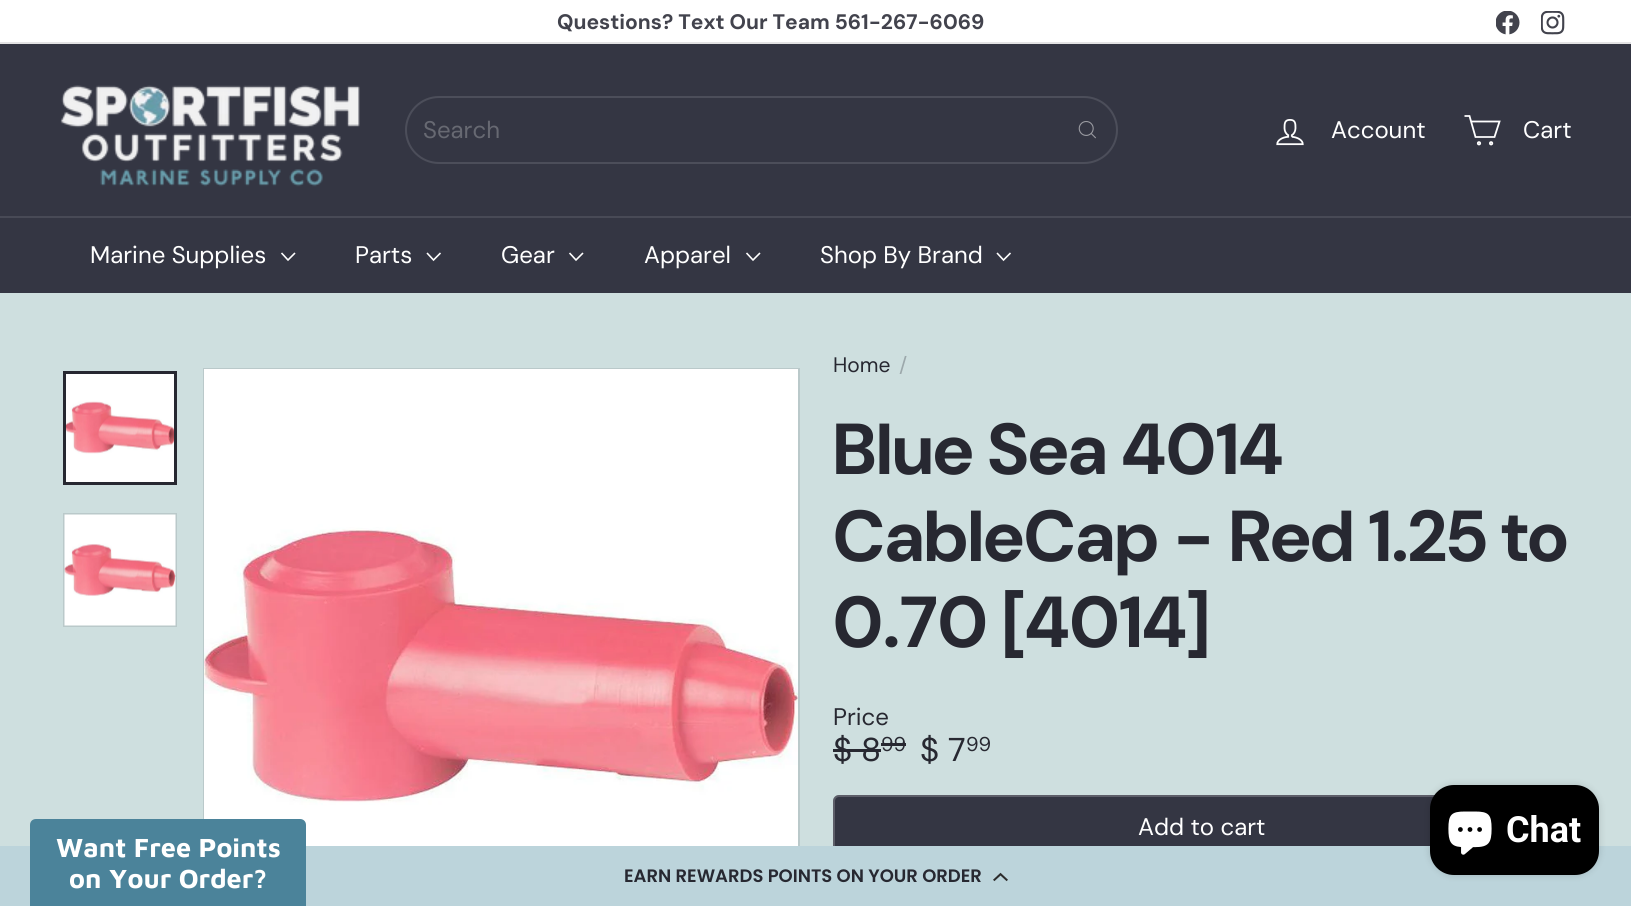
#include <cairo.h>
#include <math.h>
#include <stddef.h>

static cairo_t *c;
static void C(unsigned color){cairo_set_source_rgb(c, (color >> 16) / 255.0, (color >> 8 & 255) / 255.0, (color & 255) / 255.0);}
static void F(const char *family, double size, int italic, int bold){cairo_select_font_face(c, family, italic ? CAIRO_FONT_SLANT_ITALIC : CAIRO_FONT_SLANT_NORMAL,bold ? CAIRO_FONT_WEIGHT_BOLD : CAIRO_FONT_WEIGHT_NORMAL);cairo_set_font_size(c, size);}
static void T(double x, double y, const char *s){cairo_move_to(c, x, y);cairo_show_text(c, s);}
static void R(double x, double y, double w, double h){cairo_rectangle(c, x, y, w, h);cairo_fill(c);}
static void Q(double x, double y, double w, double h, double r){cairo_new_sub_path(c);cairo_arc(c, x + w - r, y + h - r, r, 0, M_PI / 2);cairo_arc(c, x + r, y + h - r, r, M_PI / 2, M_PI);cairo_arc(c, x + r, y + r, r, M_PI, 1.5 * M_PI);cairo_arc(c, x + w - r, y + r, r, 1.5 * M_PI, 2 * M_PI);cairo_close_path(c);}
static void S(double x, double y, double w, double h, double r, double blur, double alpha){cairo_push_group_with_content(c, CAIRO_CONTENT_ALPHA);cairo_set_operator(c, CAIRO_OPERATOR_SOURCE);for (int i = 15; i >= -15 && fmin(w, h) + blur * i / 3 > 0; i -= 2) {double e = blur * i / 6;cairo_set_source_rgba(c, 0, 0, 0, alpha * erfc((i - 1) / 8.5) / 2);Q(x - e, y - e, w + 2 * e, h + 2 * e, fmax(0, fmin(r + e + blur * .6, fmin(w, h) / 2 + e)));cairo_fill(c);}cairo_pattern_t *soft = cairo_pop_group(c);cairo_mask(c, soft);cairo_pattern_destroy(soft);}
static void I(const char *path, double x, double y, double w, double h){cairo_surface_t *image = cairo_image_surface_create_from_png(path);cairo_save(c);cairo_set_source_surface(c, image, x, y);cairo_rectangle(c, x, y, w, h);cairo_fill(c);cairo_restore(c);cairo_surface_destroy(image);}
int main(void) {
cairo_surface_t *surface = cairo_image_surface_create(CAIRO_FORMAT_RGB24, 1631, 906);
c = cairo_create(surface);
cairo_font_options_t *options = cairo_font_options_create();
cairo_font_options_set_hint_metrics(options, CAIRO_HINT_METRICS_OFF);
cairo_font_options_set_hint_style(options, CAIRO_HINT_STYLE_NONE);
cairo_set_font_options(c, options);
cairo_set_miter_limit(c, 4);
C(0xcedfdf);
cairo_paint(c);
C(0xffffff);
R(0,0,1631,42);
F("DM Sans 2",21,0,1);
C(0x42434d);
T(557,29,"Questions? Text Our Team 561-267-6069");
I("1.png",1496,11,24,24);
I("2.png",1541,11,24,24);
C(0xe3e3e4);
R(0,42,1631,2);
C(0x343643);
R(0,44,1631,172);
I("3.png",60,85,300,102);
Q(406,97,711,66,33);
C(0x4c4e5a);
cairo_stroke(c);
F("DM Sans",24,0,0);
C(0x676972);
T(423,138,"Search");
I("4.png",1078,121,18,18);
I("5.png",1276,119,28,27);
C(0xffffff);
T(1331,138,"Account");
cairo_new_path(c);
cairo_move_to(c,1471,121.5);
cairo_line_to(c,1499.5,121.5);
cairo_line_to(c,1494.5,137);
cairo_line_to(c,1475.5,137);
cairo_line_to(c,1469.5,116);
cairo_line_to(c,1464.5,116);
cairo_set_line_width(c,1.8);
cairo_stroke(c);
cairo_arc(c,1479,143.3,1.2,0,2 * M_PI);
cairo_stroke(c);
cairo_arc(c,1491.1,143.3,1.2,0,2 * M_PI);
cairo_stroke(c);
T(1523,138,"Cart");
C(0x343643);
R(0,218,1631,75);
C(0x484a56);
R(0,216,1631,2);
C(0xffffff);
T(90,263,"Marine Supplies");
cairo_new_path(c);
cairo_move_to(c,281.5,253);
cairo_line_to(c,288,260);
cairo_line_to(c,295,253);
cairo_set_line_width(c,1.6);
cairo_stroke(c);
T(355,263,"Parts");
cairo_new_path(c);
cairo_move_to(c,427,253);
cairo_line_to(c,433.5,260);
cairo_line_to(c,440.5,253);
cairo_stroke(c);
T(501,263,"Gear");
cairo_new_path(c);
cairo_move_to(c,569.5,253);
cairo_line_to(c,576,260);
cairo_line_to(c,583,253);
cairo_stroke(c);
T(644,263,"Apparel");
cairo_new_path(c);
cairo_move_to(c,746.5,253);
cairo_line_to(c,753,260);
cairo_line_to(c,760,253);
cairo_stroke(c);
T(820,263,"Shop By Brand");
cairo_new_path(c);
cairo_move_to(c,997,253);
cairo_line_to(c,1003.5,260);
cairo_line_to(c,1010.5,253);
cairo_stroke(c);
I("6.png",66,374,108,108);
cairo_rectangle(c,64.5,372.5,111,111);
C(0x272831);
cairo_set_line_width(c,3);
cairo_stroke(c);
cairo_rectangle(c,64,514,112,112);
C(0xbac9ca);
cairo_set_line_width(c,2);
cairo_stroke(c);
I("7.png",64,514,112,112);
cairo_rectangle(c,204,369,595,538);
cairo_stroke(c);
I("8.png",204,369,594,477);
F("DM Sans",21,0,0);
C(0x272831);
T(833,372,"Home");
C(0x9ca8ab);
T(899,372,"/");
F("DM Sans",72,0,1);
C(0x272831);
T(833,474,"Blue Sea 4014");
T(833,561,"CableCap - Red 1.25 to");
T(833,647,"0.70 [4014]");
F("DM Sans",24,0,0);
T(833,725,"Price");
F("DM Sans",33,0,0);
T(833,761,"$ 8");
R(833,749,48,3);
F("DM Sans",20,0,0);
T(881,751,"99");
R(881,743,25,3);
F("DM Sans",33,0,0);
T(920,761,"$ 7");
F("DM Sans",20,0,0);
T(966,751,"99");
C(0x343643);
Q(833,795,739,65,6);
cairo_fill(c);
Q(834,796,737,63,5);
cairo_set_source_rgba(c,1,1,1,0.2);
cairo_stroke(c);
F("DM Sans",24,0,0);
C(0xffffff);
T(1138,835,"Add to cart");
C(0xbcd4db);
R(0,846,1631,60);
C(0x000000);
S(1430,785,169,90,24,4,.15);
C(0x000000);
Q(1430,785,169,90,24);
cairo_fill(c);
I("9.png",1448,811,44,44);
F("Roboto",36,0,1);
C(0xffffff);
T(1506,842,"Chat");
C(0x4b839a);
cairo_new_path(c);
cairo_move_to(c,36,819);
cairo_line_to(c,300,819);
cairo_curve_to(c,303.5,819,306,821.5,306,825);
cairo_line_to(c,306,906);
cairo_line_to(c,30,906);
cairo_line_to(c,30,825);
cairo_curve_to(c,30,821.5,32.5,819,36,819);
cairo_close_path(c);
cairo_fill(c);
F("Maven Pro",27,0,1);
C(0xffffff);
T(56,857,"Want Free Points");
T(69,888,"on Your Order?");
F("Poppins SemiBold",18,0,0);
C(0x272831);
T(624,882,"EARN REWARDS POINTS ON YOUR ORDER");
I("10.png",993,872,15,10);
cairo_surface_write_to_png(surface, "o.png");
cairo_font_options_destroy(options);
cairo_destroy(c);
cairo_surface_destroy(surface);
return 0;
}
